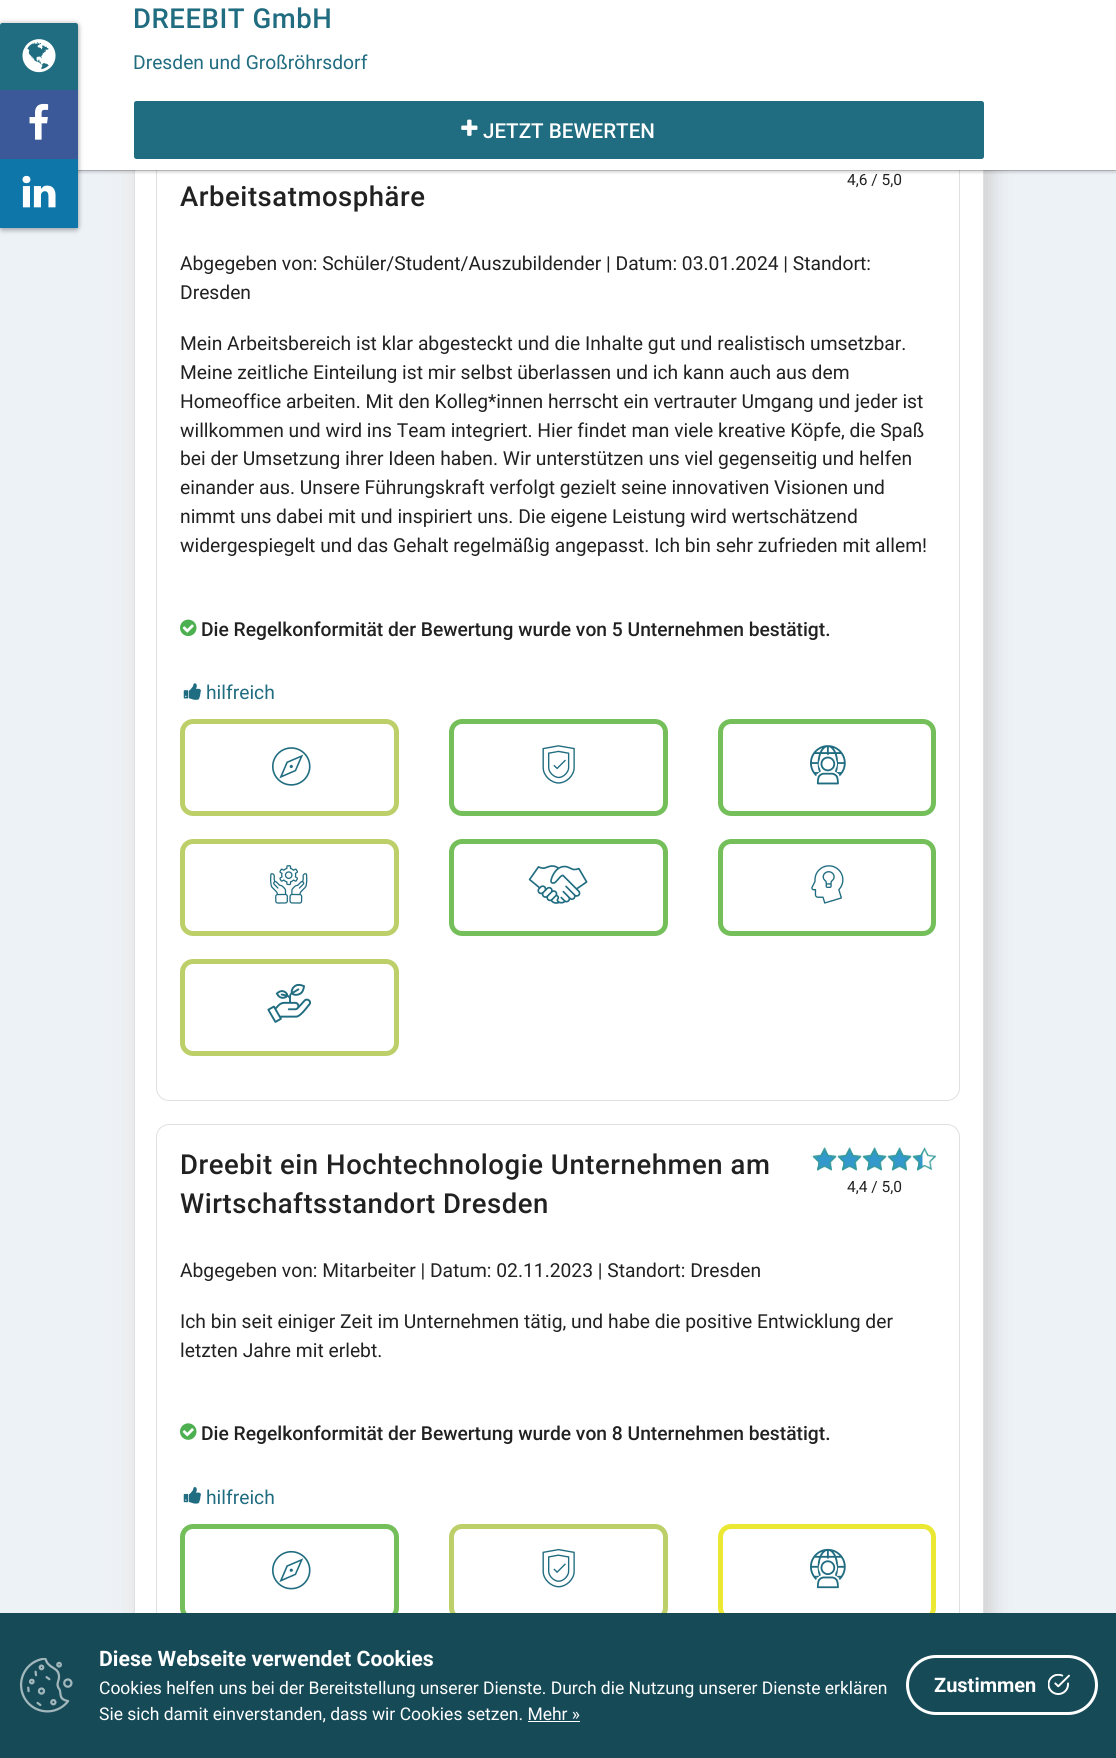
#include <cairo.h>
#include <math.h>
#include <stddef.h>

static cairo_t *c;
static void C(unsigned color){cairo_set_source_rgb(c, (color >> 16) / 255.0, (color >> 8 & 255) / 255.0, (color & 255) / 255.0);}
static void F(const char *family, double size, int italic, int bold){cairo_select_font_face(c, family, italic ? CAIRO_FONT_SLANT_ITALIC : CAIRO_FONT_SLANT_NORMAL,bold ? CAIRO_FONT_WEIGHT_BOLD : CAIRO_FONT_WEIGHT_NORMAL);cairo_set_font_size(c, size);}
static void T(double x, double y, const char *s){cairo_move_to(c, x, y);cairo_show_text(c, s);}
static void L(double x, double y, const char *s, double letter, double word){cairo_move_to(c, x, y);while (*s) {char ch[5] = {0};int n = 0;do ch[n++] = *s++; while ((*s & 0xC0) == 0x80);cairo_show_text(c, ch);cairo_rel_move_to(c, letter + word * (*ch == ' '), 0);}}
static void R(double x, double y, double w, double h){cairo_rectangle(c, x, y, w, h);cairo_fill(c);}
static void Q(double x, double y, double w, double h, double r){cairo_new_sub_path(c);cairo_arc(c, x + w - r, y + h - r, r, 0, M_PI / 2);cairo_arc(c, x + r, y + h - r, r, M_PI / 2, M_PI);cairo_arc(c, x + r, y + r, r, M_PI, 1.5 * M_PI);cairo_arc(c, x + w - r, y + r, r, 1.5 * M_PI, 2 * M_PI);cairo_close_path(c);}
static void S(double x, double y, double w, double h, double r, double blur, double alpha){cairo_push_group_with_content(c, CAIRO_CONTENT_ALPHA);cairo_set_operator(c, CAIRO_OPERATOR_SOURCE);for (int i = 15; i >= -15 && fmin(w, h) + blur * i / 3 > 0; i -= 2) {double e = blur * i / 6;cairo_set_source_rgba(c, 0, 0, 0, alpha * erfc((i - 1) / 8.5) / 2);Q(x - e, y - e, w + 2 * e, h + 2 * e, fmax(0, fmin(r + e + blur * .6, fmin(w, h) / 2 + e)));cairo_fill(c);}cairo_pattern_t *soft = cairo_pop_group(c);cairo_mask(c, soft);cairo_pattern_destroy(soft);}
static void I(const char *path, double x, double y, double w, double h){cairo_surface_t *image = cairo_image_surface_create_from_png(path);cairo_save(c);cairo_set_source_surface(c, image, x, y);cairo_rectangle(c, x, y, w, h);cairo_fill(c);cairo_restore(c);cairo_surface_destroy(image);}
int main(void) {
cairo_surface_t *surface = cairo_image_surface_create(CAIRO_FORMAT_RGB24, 1116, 1758);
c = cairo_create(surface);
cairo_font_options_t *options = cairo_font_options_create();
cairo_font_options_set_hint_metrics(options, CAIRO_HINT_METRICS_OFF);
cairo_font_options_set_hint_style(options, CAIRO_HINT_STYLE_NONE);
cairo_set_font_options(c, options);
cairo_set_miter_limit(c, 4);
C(0xedf2f7);
cairo_paint(c);
C(0xededed);
S(125,-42,850,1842,13,9.5,1);
C(0xd3d3d3);
S(143,-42,850,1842,13,9.5,1);
C(0xffffff);
R(135,170,848,1443);
cairo_rectangle(c,134.5,-.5,849,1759);
C(0xe0e0e0);
cairo_set_line_width(c,1);
cairo_stroke(c);
Q(156.5,116.5,803,984,12.5);
cairo_stroke(c);
cairo_set_source_rgba(c,0,0,0,0.2);
R(78,170,1038,1);
C(0x000000);
S(0,3,1116,170,0,1,.12);
C(0xffffff);
R(0,0,1116,170);
C(0x000000);
S(0,24,78,205,2.5,3,.2);
S(0,26,78,205,2.5,2.5,.12);
S(0,23,78,205,2.5,2.5,.14);
C(0x206c80);
cairo_new_path(c);
cairo_move_to(c,2.5,23);
cairo_line_to(c,75.5,23);
cairo_curve_to(c,77,23,78,24,78,25.5);
cairo_line_to(c,78,91);
cairo_line_to(c,0,91);
cairo_line_to(c,0,25.5);
cairo_curve_to(c,0,24,1,23,2.5,23);
cairo_close_path(c);
cairo_fill(c);
I("1.png",22,39,34,34);
C(0x3b5998);
R(0,90,78,69);
I("2.png",29,103,20,37);
C(0x0e76a8);
R(0,159,78,69);
I("3.png",22,175,34,33);
F("Roboto Medium",27.5,0,0);
C(0x206c80);
L(133,28,"DREEBIT GmbH",.55,0);
F("Roboto",19.25,0,0);
T(133,69,"Dresden und Großröhrsdorf");
Q(134,101,850,58,2.5);
cairo_fill(c);
I("4.png",461,119,17,17);
F("Roboto Medium",20.6,0,0);
C(0xffffff);
T(483,138,"JETZT BEWERTEN");
F("Roboto",15.5,0,0);
C(0x212121);
T(847,185,"4,6 / 5,0");
F("Roboto Medium",27.5,0,0);
L(180,206,"Arbeitsatmosphäre",.55,0);
F("Roboto",19.25,0,0);
T(180,270,"Abgegeben von: Schüler/Student/Auszubildender | Datum: 03.01.2024 | Standort:");
T(180,299,"Dresden");
T(180,350,"Mein Arbeitsbereich ist klar abgesteckt und die Inhalte gut und realistisch umsetzbar.");
T(180,379,"Meine zeitliche Einteilung ist mir selbst überlassen und ich kann auch aus dem");
T(180,408,"Homeoffice arbeiten. Mit den Kolleg*innen herrscht ein vertrauter Umgang und jeder ist");
T(180,437,"willkommen und wird ins Team integriert. Hier findet man viele kreative Köpfe, die Spaß");
T(180,465,"bei der Umsetzung ihrer Ideen haben. Wir unterstützen uns viel gegenseitig und helfen");
T(180,494,"einander aus. Unsere Führungskraft verfolgt gezielt seine innovativen Visionen und");
T(180,523,"nimmt uns dabei mit und inspiriert uns. Die eigene Leistung wird wertschätzend");
T(180,552,"widergespiegelt und das Gehalt regelmäßig angepasst. Ich bin sehr zufrieden mit allem!");
I("5.png",180,619,17,18);
F("Roboto Medium",19.25,0,0);
T(201,636,"Die Regelkonformität der Bewertung wurde von 5 Unternehmen bestätigt.");
I("6.png",183,683,18,17);
F("Roboto",19.25,0,0);
C(0x206c80);
T(206,699,"hilfreich");
Q(182.5,721.5,214,92,10.5);
C(0xbccf69);
cairo_set_line_width(c,5);
cairo_stroke(c);
I("7.png",272,747,39,39);
Q(451.5,721.5,214,92,10.5);
C(0x74bf5a);
cairo_stroke(c);
I("8.png",542,745,33,39);
Q(720.5,721.5,213,92,10.5);
cairo_stroke(c);
I("9.png",810,745,36,40);
Q(182.5,841.5,214,92,10.5);
C(0xbccf69);
cairo_stroke(c);
I("10.png",270,865,38,39);
Q(451.5,841.5,214,92,10.5);
C(0x74bf5a);
cairo_stroke(c);
I("11.png",528,865,60,39);
Q(720.5,841.5,213,92,10.5);
cairo_stroke(c);
I("12.png",811,865,33,39);
Q(182.5,961.5,214,92,10.5);
C(0xbccf69);
cairo_stroke(c);
I("13.png",267,983,44,40);
Q(156.5,1124.5,803,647,12.5);
C(0xe0e0e0);
cairo_set_line_width(c,1);
cairo_stroke(c);
F("Roboto Medium",27.5,0,0);
C(0x212121);
L(180,1174,"Dreebit ein Hochtechnologie Unternehmen am",.55,0);
L(180,1213,"Wirtschaftsstandort Dresden",.55,0);
I("14.png",811,1147,126,24);
I("15.png",811,1147,112,24);
F("Roboto",15.5,0,0);
T(847,1192,"4,4 / 5,0");
F("Roboto",19.25,0,0);
T(180,1277,"Abgegeben von: Mitarbeiter | Datum: 02.11.2023 | Standort: Dresden");
T(180,1328,"Ich bin seit einiger Zeit im Unternehmen tätig, und habe die positive Entwicklung der");
T(180,1357,"letzten Jahre mit erlebt.");
I("16.png",180,1423,17,17);
F("Roboto Medium",19.25,0,0);
T(201,1440,"Die Regelkonformität der Bewertung wurde von 8 Unternehmen bestätigt.");
I("17.png",183,1487,18,17);
F("Roboto",19.25,0,0);
C(0x206c80);
T(206,1504,"hilfreich");
Q(182.5,1526.5,214,92,10.5);
C(0x74bf5a);
cairo_set_line_width(c,5);
cairo_stroke(c);
I("18.png",272,1550,39,40);
Q(451.5,1526.5,214,92,10.5);
C(0xbccf69);
cairo_stroke(c);
I("19.png",542,1548,33,40);
Q(720.5,1526.5,213,92,10.5);
C(0xebe834);
cairo_stroke(c);
I("20.png",810,1548,36,41);
C(0x164a57);
R(0,1613,1116,145);
I("21.png",19,1658,54,55);
F("Roboto",21.25,0,1);
C(0xffffff);
T(99,1666,"Diese Webseite verwendet Cookies");
F("Roboto",17.5,0,0);
T(99,1694,"Cookies helfen uns bei der Bereitstellung unserer Dienste. Durch die Nutzung unserer Dienste erklären");
T(99,1720,"Sie sich damit einverstanden, dass wir Cookies setzen. Mehr »");
R(528,1721,52,1);
Q(907.5,1656.5,189,57,28.5);
cairo_set_line_width(c,3);
cairo_stroke(c);
F("Roboto",20,0,1);
T(934,1692,"Zustimmen");
I("22.png",1048,1674,22,21);
cairo_surface_write_to_png(surface, "o.png");
cairo_font_options_destroy(options);
cairo_destroy(c);
cairo_surface_destroy(surface);
return 0;
}
